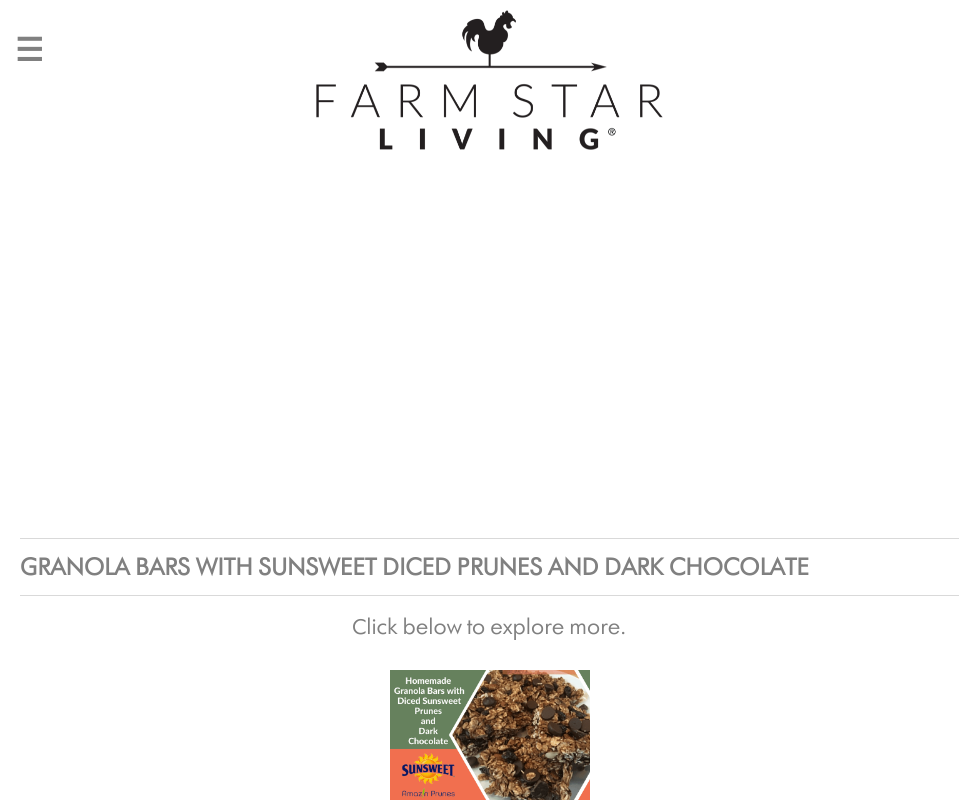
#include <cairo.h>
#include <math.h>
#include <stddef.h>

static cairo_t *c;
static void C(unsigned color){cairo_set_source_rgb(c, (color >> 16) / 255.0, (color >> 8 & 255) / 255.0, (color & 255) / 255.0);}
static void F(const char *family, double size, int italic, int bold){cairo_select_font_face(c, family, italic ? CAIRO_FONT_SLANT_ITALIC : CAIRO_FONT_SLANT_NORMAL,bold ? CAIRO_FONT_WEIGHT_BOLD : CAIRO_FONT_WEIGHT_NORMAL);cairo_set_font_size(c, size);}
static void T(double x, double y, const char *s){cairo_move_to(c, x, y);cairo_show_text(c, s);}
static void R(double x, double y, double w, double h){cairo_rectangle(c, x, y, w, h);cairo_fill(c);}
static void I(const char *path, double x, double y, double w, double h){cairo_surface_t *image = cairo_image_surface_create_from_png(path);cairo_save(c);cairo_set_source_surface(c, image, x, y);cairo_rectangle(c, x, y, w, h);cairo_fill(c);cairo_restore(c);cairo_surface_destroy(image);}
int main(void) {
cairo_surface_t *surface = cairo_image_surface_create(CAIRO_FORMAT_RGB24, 979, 804);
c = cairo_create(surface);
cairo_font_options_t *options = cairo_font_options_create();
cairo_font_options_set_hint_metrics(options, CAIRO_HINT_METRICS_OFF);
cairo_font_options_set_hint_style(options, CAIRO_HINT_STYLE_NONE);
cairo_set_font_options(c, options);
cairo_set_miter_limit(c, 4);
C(0xffffff);
cairo_paint(c);
F("DejaVu Sans",32,0,1);
C(0x808080);
T(15,61,"☰");
I("1.png",316,10,347,140);
C(0xd9d9d9);
R(20,538,939,1);
R(20,595,939,1);
F("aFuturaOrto",23,0,1);
C(0x808080);
T(20,575,"GRANOLA BARS WITH SUNSWEET DICED PRUNES AND DARK CHOCOLATE");
F("aFuturaOrto",20,0,0);
T(352,634,"Click below to explore more.");
I("2.png",390,670,200,130);
cairo_surface_write_to_png(surface, "o.png");
cairo_font_options_destroy(options);
cairo_destroy(c);
cairo_surface_destroy(surface);
return 0;
}
